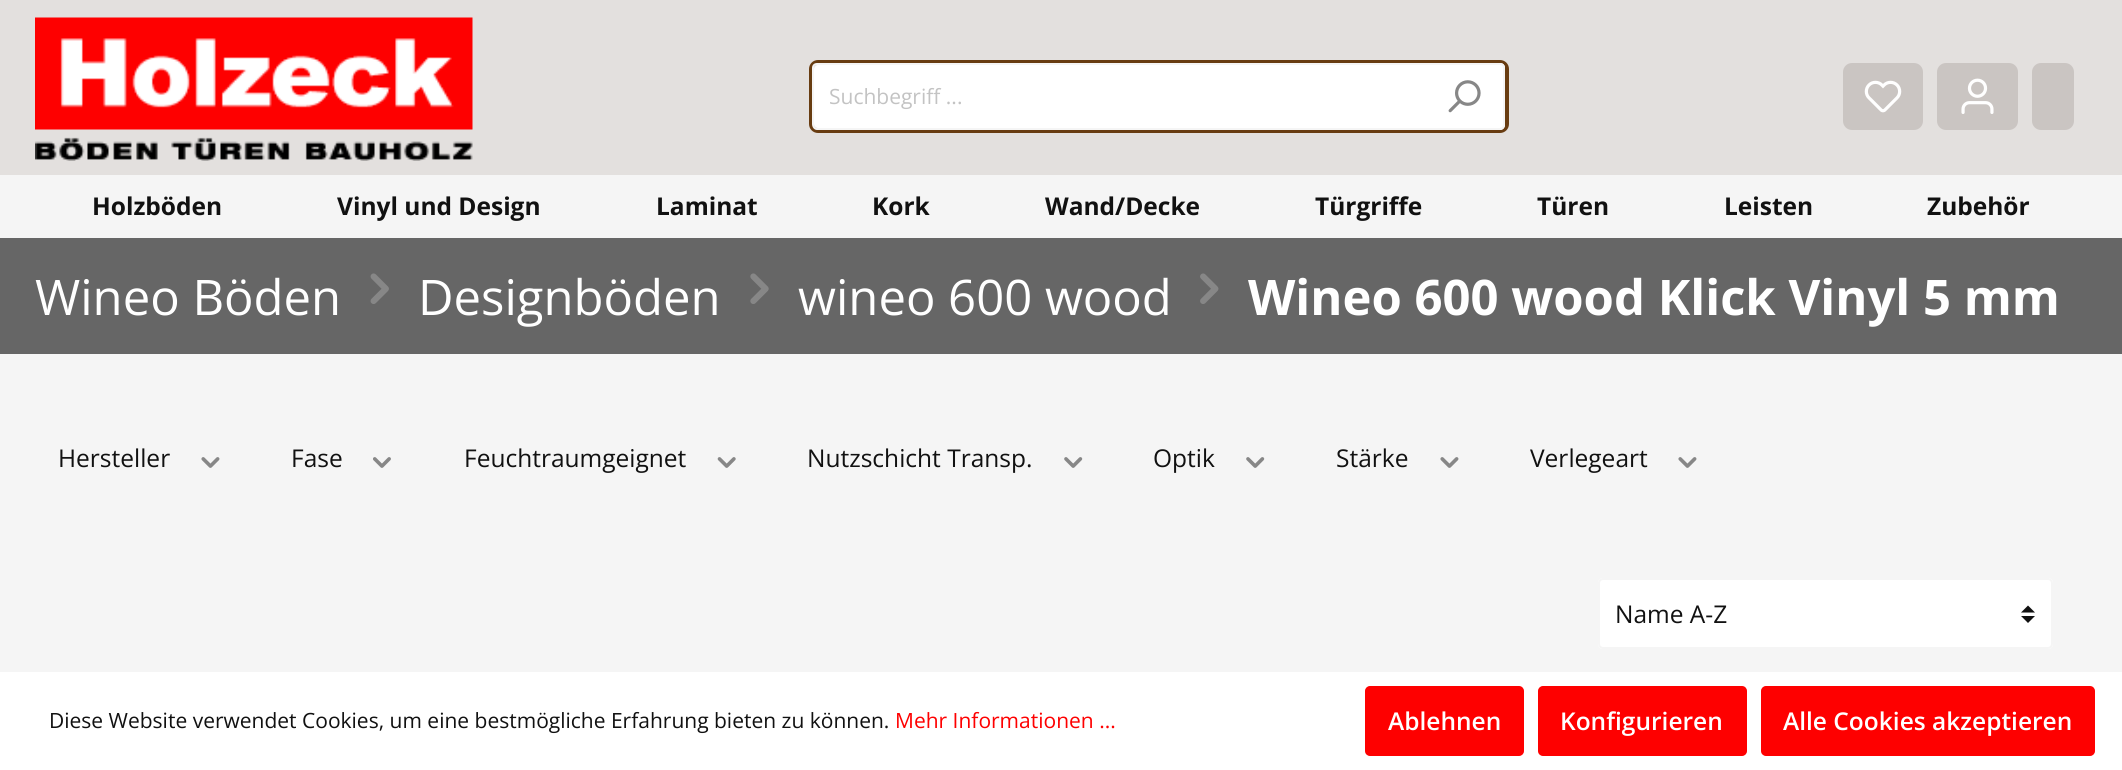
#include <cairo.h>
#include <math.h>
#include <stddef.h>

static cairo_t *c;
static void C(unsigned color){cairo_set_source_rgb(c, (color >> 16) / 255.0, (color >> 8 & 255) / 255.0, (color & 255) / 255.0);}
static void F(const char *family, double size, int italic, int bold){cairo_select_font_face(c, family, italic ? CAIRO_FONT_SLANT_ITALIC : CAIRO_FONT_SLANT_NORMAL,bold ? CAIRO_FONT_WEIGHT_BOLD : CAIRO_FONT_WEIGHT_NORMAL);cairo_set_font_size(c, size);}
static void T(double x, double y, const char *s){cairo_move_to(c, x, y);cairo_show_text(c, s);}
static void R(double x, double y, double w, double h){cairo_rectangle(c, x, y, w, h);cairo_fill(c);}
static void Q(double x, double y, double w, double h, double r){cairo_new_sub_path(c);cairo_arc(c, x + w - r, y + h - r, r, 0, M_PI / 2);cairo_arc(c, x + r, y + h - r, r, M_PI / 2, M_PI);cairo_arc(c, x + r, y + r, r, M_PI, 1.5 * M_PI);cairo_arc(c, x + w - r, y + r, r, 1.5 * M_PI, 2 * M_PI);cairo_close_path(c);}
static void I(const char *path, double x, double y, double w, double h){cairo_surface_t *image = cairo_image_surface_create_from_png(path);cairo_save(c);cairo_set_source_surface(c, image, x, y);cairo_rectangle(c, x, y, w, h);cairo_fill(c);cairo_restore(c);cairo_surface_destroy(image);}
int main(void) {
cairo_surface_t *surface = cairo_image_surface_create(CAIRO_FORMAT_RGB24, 2122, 770);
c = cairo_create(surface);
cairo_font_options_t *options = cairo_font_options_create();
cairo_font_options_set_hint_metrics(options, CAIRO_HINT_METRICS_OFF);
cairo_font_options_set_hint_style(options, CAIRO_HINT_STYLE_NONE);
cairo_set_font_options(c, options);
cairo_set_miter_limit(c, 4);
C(0xe3e0de);
cairo_paint(c);
I("1.png",35,17,438,144);
Q(811,62,696,69,7);
C(0x683c11);
cairo_set_line_width(c,4);
cairo_stroke(c);
C(0xffffff);
cairo_new_path(c);
cairo_move_to(c,818,65);
cairo_line_to(c,1425,65);
cairo_line_to(c,1425,128);
cairo_line_to(c,818,128);
cairo_curve_to(c,816,128,814,126,814,124);
cairo_line_to(c,814,69);
cairo_curve_to(c,814,67,816,65,818,65);
cairo_close_path(c);
cairo_fill(c);
C(0xf5f5f5);
cairo_set_fill_rule(c,CAIRO_FILL_RULE_EVEN_ODD);
cairo_new_path(c);
cairo_move_to(c,817,63);
cairo_line_to(c,1424,63);
cairo_line_to(c,1424,130);
cairo_line_to(c,817,130);
cairo_curve_to(c,814,130,812,127,812,124);
cairo_line_to(c,812,68);
cairo_curve_to(c,812,65,814,63,817,63);
cairo_close_path(c);
cairo_move_to(c,817,65);
cairo_line_to(c,1424,65);
cairo_line_to(c,1424,128);
cairo_line_to(c,817,128);
cairo_curve_to(c,815,128,814,126,814,124);
cairo_line_to(c,814,68);
cairo_curve_to(c,814,66,815,65,817,65);
cairo_close_path(c);
cairo_fill(c);
cairo_save(c);
cairo_set_fill_rule(c,CAIRO_FILL_RULE_WINDING);
cairo_rectangle(c,830,82,579,30);
cairo_clip(c);
F("Open Sans",21,0,0);
C(0xc3c3c3);
T(829,104,"Suchbegriff ...");
cairo_restore(c);
C(0xffffff);
cairo_new_path(c);
cairo_move_to(c,1423,63);
cairo_line_to(c,1500,63);
cairo_curve_to(c,1503,63,1505,65,1505,68);
cairo_line_to(c,1505,125);
cairo_curve_to(c,1505,128,1503,130,1500,130);
cairo_line_to(c,1423,130);
cairo_close_path(c);
cairo_fill(c);
C(0xf5f5f5);
cairo_new_path(c);
cairo_move_to(c,1423,63);
cairo_line_to(c,1500,63);
cairo_curve_to(c,1503,63,1505,65,1505,68);
cairo_line_to(c,1505,124);
cairo_curve_to(c,1505,127,1503,130,1500,130);
cairo_line_to(c,1423,130);
cairo_close_path(c);
cairo_move_to(c,1423,65);
cairo_line_to(c,1500,65);
cairo_curve_to(c,1502,65,1503,66,1503,68);
cairo_line_to(c,1503,124);
cairo_curve_to(c,1503,126,1502,128,1500,128);
cairo_line_to(c,1423,128);
cairo_close_path(c);
cairo_fill(c);
I("2.png",1448,80,33,33);
C(0xcac5c2);
Q(1843,63,80,67,9);
cairo_fill(c);
I("3.png",1864,80,38,33);
Q(1937,63,81,67,9);
cairo_fill(c);
I("4.png",1961,78,33,36);
Q(2032,63,42,67,9);
cairo_fill(c);
C(0xf5f5f5);
R(0,175,2122,63);
F("Open Sans",24.5,0,1);
C(0x111111);
T(92,215,"Holzböden");
T(337,215,"Vinyl und Design");
T(656,215,"Laminat");
T(872,215,"Kork");
T(1045,215,"Wand/Decke");
T(1315,215,"Türgriffe");
T(1537,215,"Türen");
T(1724,215,"Leisten");
T(1927,215,"Zubehör");
C(0xf5f5f5);
R(0,354,2122,318);
C(0x666666);
R(0,238,2122,116);
F("Open Sans",49,0,0);
C(0xffffff);
T(35,315,"Wineo Böden");
I("5.png",370,273,19,31);
T(418,315,"Designböden");
I("6.png",750,273,19,31);
T(798,315,"wineo 600 wood");
I("7.png",1200,273,19,31);
F("Open Sans",49,0,1);
T(1248,315,"Wineo 600 wood Klick Vinyl 5 mm");
F("Open Sans",24.5,0,0);
C(0x111111);
T(58,467,"Hersteller");
I("8.png",201,457,19,11);
T(291,467,"Fase");
I("9.png",373,457,18,11);
T(464,467,"Feuchtraumgeignet");
I("10.png",717,457,19,11);
T(807,467,"Nutzschicht Transp.");
I("11.png",1064,457,19,11);
T(1153,467,"Optik");
I("11.png",1246,457,19,11);
T(1336,467,"Stärke");
I("8.png",1440,457,19,11);
T(1530,467,"Verlegeart");
I("8.png",1678,457,19,11);
C(0xffffff);
Q(1598,578,455,71,5);
cairo_fill(c);
C(0x111111);
cairo_set_fill_rule(c,CAIRO_FILL_RULE_WINDING);
cairo_new_path(c);
cairo_move_to(c,2028,605.5);
cairo_line_to(c,2021,612.5);
cairo_line_to(c,2035,612.5);
cairo_close_path(c);
cairo_move_to(c,2028,623);
cairo_line_to(c,2021,616);
cairo_line_to(c,2035,616);
cairo_close_path(c);
cairo_fill(c);
Q(1599,579,453,69,4);
C(0xf5f5f5);
cairo_set_line_width(c,2);
cairo_stroke(c);
C(0x111111);
T(1615,623,"Name A-Z");
C(0xffffff);
R(0,672,2122,98);
F("Open Sans",21,0,0);
C(0x111111);
T(49,728,"Diese Website verwendet Cookies, um eine bestmögliche Erfahrung bieten zu können.");
C(0xfe0000);
T(895,728,"Mehr Informationen ...");
Q(1366,687,157,68,4);
cairo_fill_preserve(c);
cairo_stroke(c);
F("Open Sans SemiBold",24.5,0,0);
C(0xffffff);
T(1388,730,"Ablehnen");
C(0xfe0000);
Q(1539,687,207,68,4);
cairo_fill_preserve(c);
cairo_stroke(c);
C(0xffffff);
T(1560,730,"Konfigurieren");
C(0xfe0000);
Q(1762,687,332,68,4);
cairo_fill_preserve(c);
cairo_stroke(c);
C(0xffffff);
T(1783,730,"Alle Cookies akzeptieren");
cairo_surface_write_to_png(surface, "o.png");
cairo_font_options_destroy(options);
cairo_destroy(c);
cairo_surface_destroy(surface);
return 0;
}
